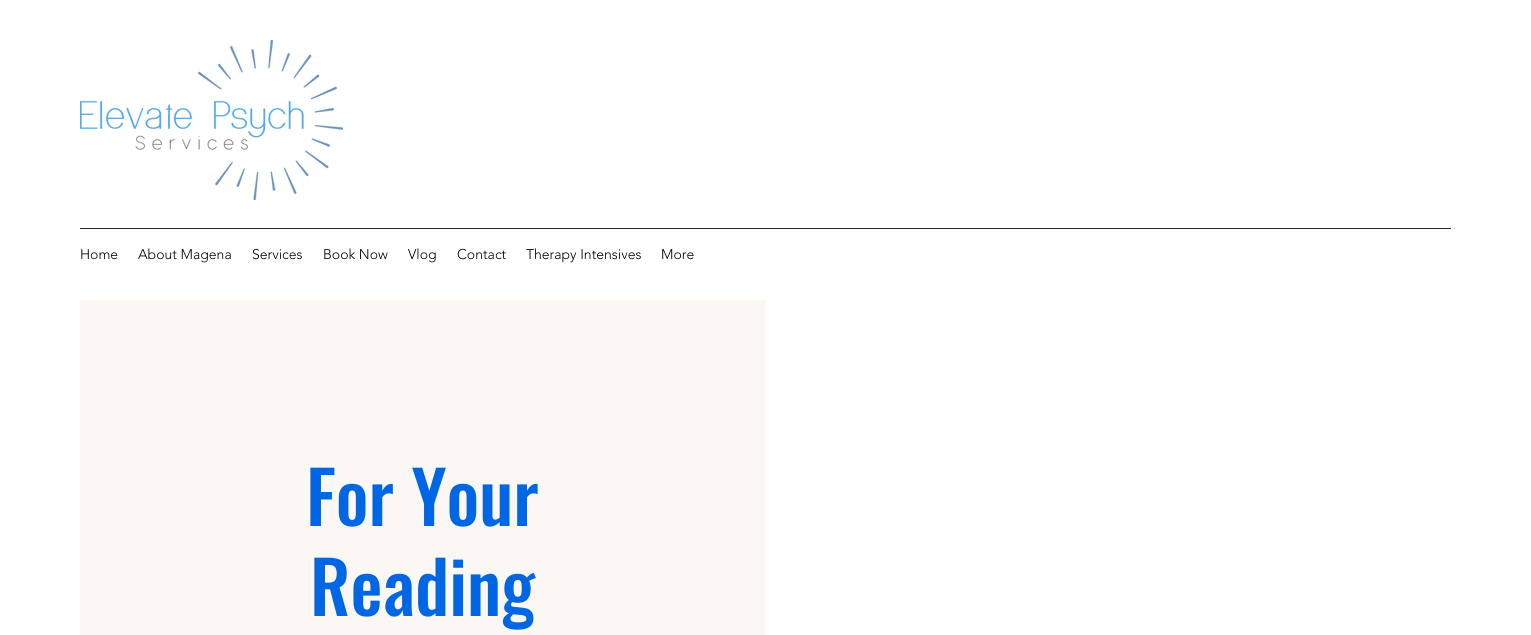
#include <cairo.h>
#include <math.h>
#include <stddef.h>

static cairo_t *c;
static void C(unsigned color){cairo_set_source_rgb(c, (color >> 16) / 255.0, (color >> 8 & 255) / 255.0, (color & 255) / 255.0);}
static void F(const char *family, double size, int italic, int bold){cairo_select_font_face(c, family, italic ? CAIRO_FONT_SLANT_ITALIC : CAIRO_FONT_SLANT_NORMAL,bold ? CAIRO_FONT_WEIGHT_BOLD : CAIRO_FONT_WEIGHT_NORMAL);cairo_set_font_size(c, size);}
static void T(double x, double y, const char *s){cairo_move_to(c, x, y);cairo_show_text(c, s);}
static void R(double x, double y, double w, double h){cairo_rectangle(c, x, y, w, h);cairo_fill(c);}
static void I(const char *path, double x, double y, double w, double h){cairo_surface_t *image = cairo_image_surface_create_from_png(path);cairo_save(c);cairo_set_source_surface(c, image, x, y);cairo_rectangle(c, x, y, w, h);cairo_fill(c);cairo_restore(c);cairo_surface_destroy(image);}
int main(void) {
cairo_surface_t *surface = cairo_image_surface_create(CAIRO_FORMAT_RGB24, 1531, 635);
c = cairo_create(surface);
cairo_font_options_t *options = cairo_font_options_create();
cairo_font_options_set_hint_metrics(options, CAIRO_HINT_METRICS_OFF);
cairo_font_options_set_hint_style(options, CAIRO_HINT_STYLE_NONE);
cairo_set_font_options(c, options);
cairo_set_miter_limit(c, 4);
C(0xffffff);
cairo_paint(c);
I("1.png",80,40,263,160);
C(0x262626);
R(80,228,1371,1);
F("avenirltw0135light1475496 Light",14,0,0);
C(0x000000);
T(80,259,"Home");
T(138,259,"About Magena");
T(252,259,"Services");
T(323,259,"Book Now");
T(408,259,"Vlog");
T(457,259,"Contact");
T(526,259,"Therapy Intensives");
T(661,259,"More");
C(0xfaf7f5);
R(80,300,686,335);
F("Oswald Medium",72,0,0);
C(0x0066e3);
T(306,526,"For Your");
T(310,616,"Reading");
cairo_surface_write_to_png(surface, "o.png");
cairo_font_options_destroy(options);
cairo_destroy(c);
cairo_surface_destroy(surface);
return 0;
}
